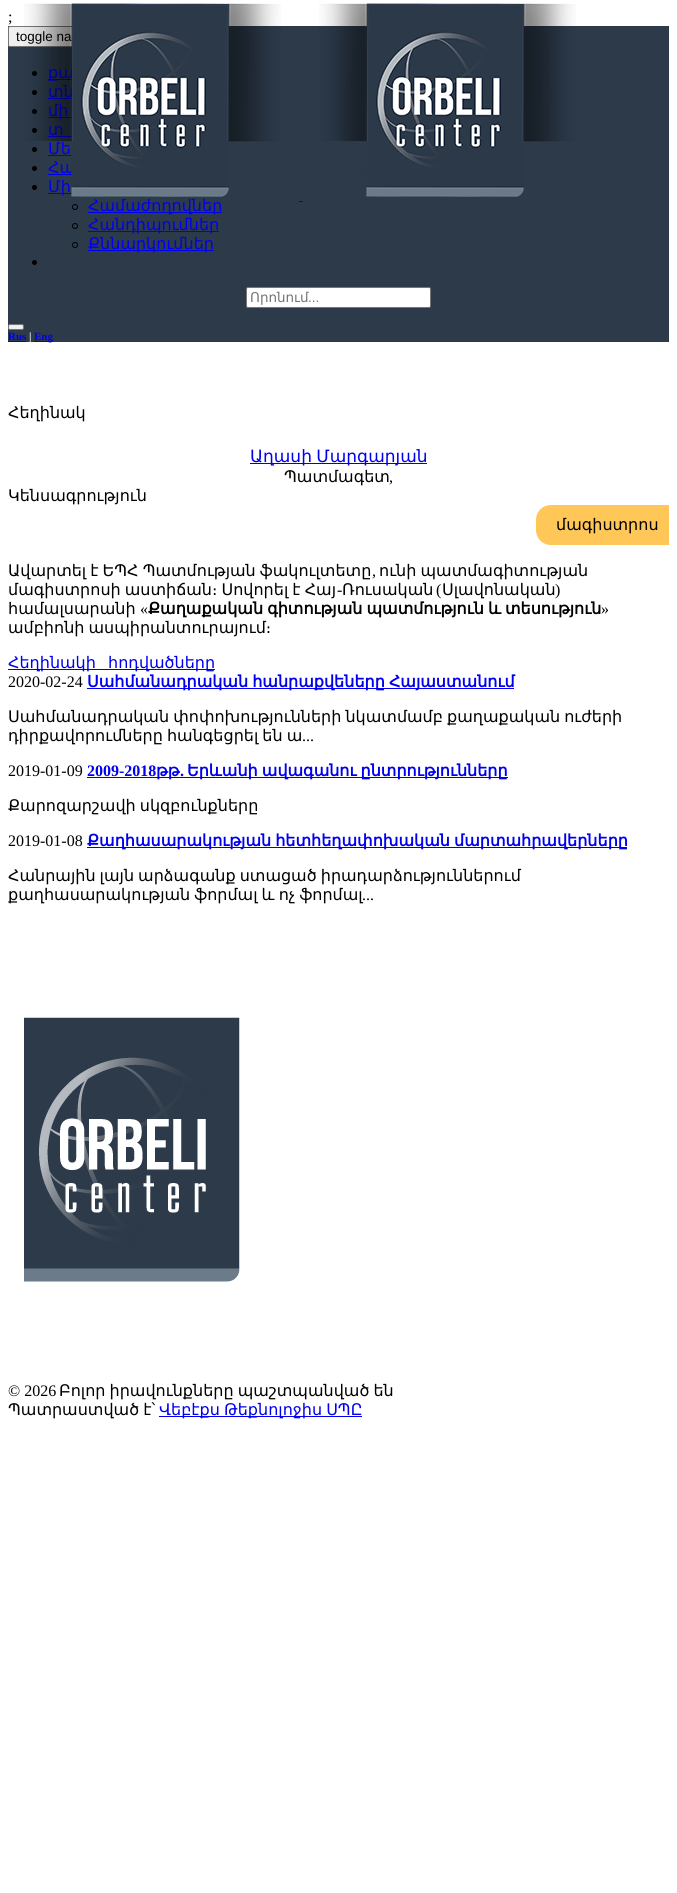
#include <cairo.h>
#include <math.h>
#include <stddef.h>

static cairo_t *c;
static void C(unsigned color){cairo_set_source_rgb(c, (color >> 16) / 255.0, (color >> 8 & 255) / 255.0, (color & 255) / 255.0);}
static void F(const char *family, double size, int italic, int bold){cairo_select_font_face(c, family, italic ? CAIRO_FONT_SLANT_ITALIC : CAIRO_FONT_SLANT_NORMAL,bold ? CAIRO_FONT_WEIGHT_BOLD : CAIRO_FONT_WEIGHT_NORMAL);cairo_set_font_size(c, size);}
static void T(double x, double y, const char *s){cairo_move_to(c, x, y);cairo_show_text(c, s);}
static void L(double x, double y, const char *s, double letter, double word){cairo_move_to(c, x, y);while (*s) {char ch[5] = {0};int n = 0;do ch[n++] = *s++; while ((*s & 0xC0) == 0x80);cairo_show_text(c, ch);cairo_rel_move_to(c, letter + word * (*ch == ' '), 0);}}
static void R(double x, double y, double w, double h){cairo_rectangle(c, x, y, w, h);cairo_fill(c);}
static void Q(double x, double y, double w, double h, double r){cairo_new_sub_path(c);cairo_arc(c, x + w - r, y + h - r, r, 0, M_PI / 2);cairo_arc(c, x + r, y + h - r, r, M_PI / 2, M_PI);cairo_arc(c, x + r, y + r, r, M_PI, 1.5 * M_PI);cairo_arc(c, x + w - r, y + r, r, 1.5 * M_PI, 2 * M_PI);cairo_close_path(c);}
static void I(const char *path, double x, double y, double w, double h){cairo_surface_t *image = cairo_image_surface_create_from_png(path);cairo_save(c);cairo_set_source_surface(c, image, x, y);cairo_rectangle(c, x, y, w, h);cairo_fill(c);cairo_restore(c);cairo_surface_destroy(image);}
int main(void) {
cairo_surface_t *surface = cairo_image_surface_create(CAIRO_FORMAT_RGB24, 677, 1893);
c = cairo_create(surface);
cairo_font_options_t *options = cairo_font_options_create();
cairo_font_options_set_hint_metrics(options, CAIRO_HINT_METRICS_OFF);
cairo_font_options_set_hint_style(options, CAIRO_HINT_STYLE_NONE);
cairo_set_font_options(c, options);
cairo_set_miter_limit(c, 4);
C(0xffffff);
cairo_paint(c);
F("Liberation Serif",16,0,0);
C(0x000000);
T(8,22,";");
C(0x2c3a4a);
R(8,26,661,316);
C(0xefefef);
Q(8.5,26.5,116,20,1.5);
cairo_fill_preserve(c);
C(0x767676);
cairo_set_line_width(c,1);
cairo_stroke(c);
F("Liberation Sans",13.5,0,0);
C(0x000000);
T(16,41,"toggle na");
cairo_new_path(c);
cairo_arc(c,34.5,73.5,2.5,0,2 * M_PI);
cairo_fill(c);
C(0x0000ee);
R(48,79,24,1);
F("DejaVu Sans",16,0,0);
T(48,78,"քա");
C(0x000000);
cairo_new_path(c);
cairo_arc(c,34.5,92.5,2.5,0,2 * M_PI);
cairo_fill(c);
C(0x0000ee);
T(48,97,"տն");
R(48,98,24,1);
C(0x000000);
cairo_new_path(c);
cairo_arc(c,34.5,111.5,2.5,0,2 * M_PI);
cairo_fill(c);
C(0x0000ee);
R(48,117,24,1);
T(48,116,"մի");
C(0x000000);
cairo_new_path(c);
cairo_arc(c,34.5,130.5,2.5,0,2 * M_PI);
cairo_fill(c);
C(0x0000ee);
T(48,135,"տ");
R(48,136,24,1);
C(0x000000);
cairo_new_path(c);
cairo_arc(c,34.5,149.5,2.5,0,2 * M_PI);
cairo_fill(c);
C(0x0000ee);
T(48,154,"Մե");
R(48,155,24,1);
C(0x000000);
cairo_new_path(c);
cairo_arc(c,34.5,168.5,2.5,0,2 * M_PI);
cairo_fill(c);
C(0x0000ee);
T(48,173,"Հա");
R(48,174,24,1);
C(0x000000);
cairo_new_path(c);
cairo_arc(c,34.5,187.5,2.5,0,2 * M_PI);
cairo_fill(c);
C(0x0000ee);
R(48,193,24,1);
T(48,192,"Մի");
I("1.png",24,3,257,194);
I("2.png",319,3,257,194);
R(299,201,4,1);
cairo_arc(c,75,207,2.5,0,2 * M_PI);
C(0x000000);
cairo_stroke(c);
C(0x0000ee);
R(88,212,134,1);
T(88,211,"Համաժողովներ");
cairo_new_path(c);
cairo_arc(c,75,226,2.5,0,2 * M_PI);
C(0x000000);
cairo_stroke(c);
C(0x0000ee);
R(88,231,131,1);
T(88,230,"Հանդիպումներ");
cairo_new_path(c);
cairo_arc(c,75,245,2.5,0,2 * M_PI);
C(0x000000);
cairo_stroke(c);
C(0x0000ee);
R(88,250,126,1);
T(88,249,"Քննարկումներ");
C(0x000000);
cairo_new_path(c);
cairo_arc(c,34.5,262.5,2.5,0,2 * M_PI);
cairo_fill(c);
C(0xffffff);
Q(246.5,287.5,184,20,1.5);
cairo_fill_preserve(c);
C(0x767676);
cairo_stroke(c);
F("DejaVu Sans",13.5,0,0);
C(0x757575);
T(250,302,"Որոնում");
F("Liberation Sans",13.5,0,0);
T(308,302,"...");
C(0xefefef);
Q(8.5,324.5,15,5,1.5);
cairo_fill_preserve(c);
C(0x767676);
cairo_stroke(c);
F("Liberation Serif",11,0,1);
C(0x0000ee);
T(8,340,"Rus");
R(8,341,18,1);
C(0xffffff);
T(29,340,"|");
C(0x0000ee);
R(34,341,19,1);
T(34,340,"Eng");
F("DejaVu Sans",16,0,0);
C(0x000000);
T(8,418,"Հեղինակ");
C(0x0000ee);
R(250,463,177,1);
F("DejaVu Sans",17,0,0);
L(250,462,"Աղասի Մարգարյան",0,-1);
F("DejaVu Sans",16,0,0);
C(0x000000);
T(284,482,"Պատմագետ");
F("Liberation Serif",16,0,0);
T(389,482,",");
F("DejaVu Sans",16,0,0);
T(8,501,"Կենսագրություն");
C(0xffc757);
cairo_new_path(c);
cairo_move_to(c,551,505);
cairo_line_to(c,669,505);
cairo_line_to(c,669,545);
cairo_line_to(c,551,545);
cairo_curve_to(c,542.5,545,536,538.5,536,530);
cairo_line_to(c,536,520);
cairo_curve_to(c,536,511.5,542.5,505,551,505);
cairo_close_path(c);
cairo_fill(c);
C(0x000000);
T(556,530,"մագիստրոս");
L(8,576,"Ավարտել է ԵՊՀ Պատմության ֆակուլտետը",0,-1);
F("Liberation Serif",16,0,0);
T(372,576,",");
F("DejaVu Sans",16,0,0);
L(379,576,"ունի պատմագիտության",0,-1);
L(8,595,"մագիստրոսի աստիճան։ Սովորել է Հայ",0,-1);
F("Liberation Serif",16,0,0);
T(337,595,"-");
F("DejaVu Sans",16,0,0);
T(342,595,"Ռուսական");
F("Liberation Serif",16,0,0);
T(436,595,"(");
F("DejaVu Sans",16,0,0);
T(442,595,"Սլավոնական");
F("Liberation Serif",16,0,0);
T(555,595,")");
F("DejaVu Sans",16,0,0);
T(8,614,"համալսարանի");
F("Liberation Serif",16,0,0);
T(140,614,"«");
F("DejaVu Sans",16,0,1);
L(148,614,"Քաղաքական գիտության պատմություն և տեսություն",0,-1);
F("Liberation Serif",16,0,0);
T(601,614,"»");
F("DejaVu Sans",16,0,0);
L(8,633,"ամբիոնի ասպիրանտուրայում։",0,-1);
C(0x0000ee);
R(8,669,207,1);
T(8,668,"Հեղինակի");
T(108,668,"հոդվածները");
F("Liberation Serif",16,0,0);
C(0x000000);
T(8,687,"2020-02-24");
C(0x0000ee);
R(87,688,427,1);
F("DejaVu Sans",16,0,1);
L(87,687,"Սահմանադրական հանրաքվեները Հայաստանում",0,-1);
F("DejaVu Sans",16,0,0);
C(0x000000);
L(8,722,"Սահմանադրական փոփոխությունների նկատմամբ քաղաքական ուժերի",0,-1);
L(8,741,"դիրքավորումները հանգեցրել են ա",0,-1);
F("Liberation Serif",16,0,0);
T(302,741,"...");
T(8,776,"2019-01-09");
F("Liberation Serif",16,0,1);
C(0x0000ee);
T(87,776,"2009-2018");
R(87,777,421,1);
F("DejaVu Sans",16,0,1);
T(156,776,"թթ");
F("Liberation Serif",16,0,1);
T(180,776,".");
F("DejaVu Sans",16,0,1);
L(187,776,"Երևանի ավագանու ընտրությունները",0,-1);
F("DejaVu Sans",16,0,0);
C(0x000000);
L(8,811,"Քարոզարշավի սկզբունքները",0,-1);
F("Liberation Serif",16,0,0);
T(8,846,"2019-01-08");
C(0x0000ee);
R(87,847,540,1);
F("DejaVu Sans",16,0,1);
L(87,846,"Քաղհասարակության հետհեղափոխական մարտահրավերները",0,-1);
F("DejaVu Sans",16,0,0);
C(0x000000);
L(8,881,"Հանրային լայն արձագանք ստացած իրադարձություններում",0,-1);
L(8,900,"քաղհասարակության ֆորմալ և ոչ ֆորմալ",0,-1);
F("Liberation Serif",16,0,0);
T(362,900,"...");
I("3.png",24,1017,216,265);
T(8,1396,"© 2026");
F("DejaVu Sans",16,0,0);
L(59,1396,"Բոլոր իրավունքները պաշտպանված են",0,-1);
L(8,1415,"Պատրաստված է՝",0,-1);
C(0x0000ee);
R(159,1416,203,1);
L(159,1415,"Վեբէքս Թեքնոլոջիս ՍՊԸ",0,-1);
cairo_surface_write_to_png(surface, "o.png");
cairo_font_options_destroy(options);
cairo_destroy(c);
cairo_surface_destroy(surface);
return 0;
}
